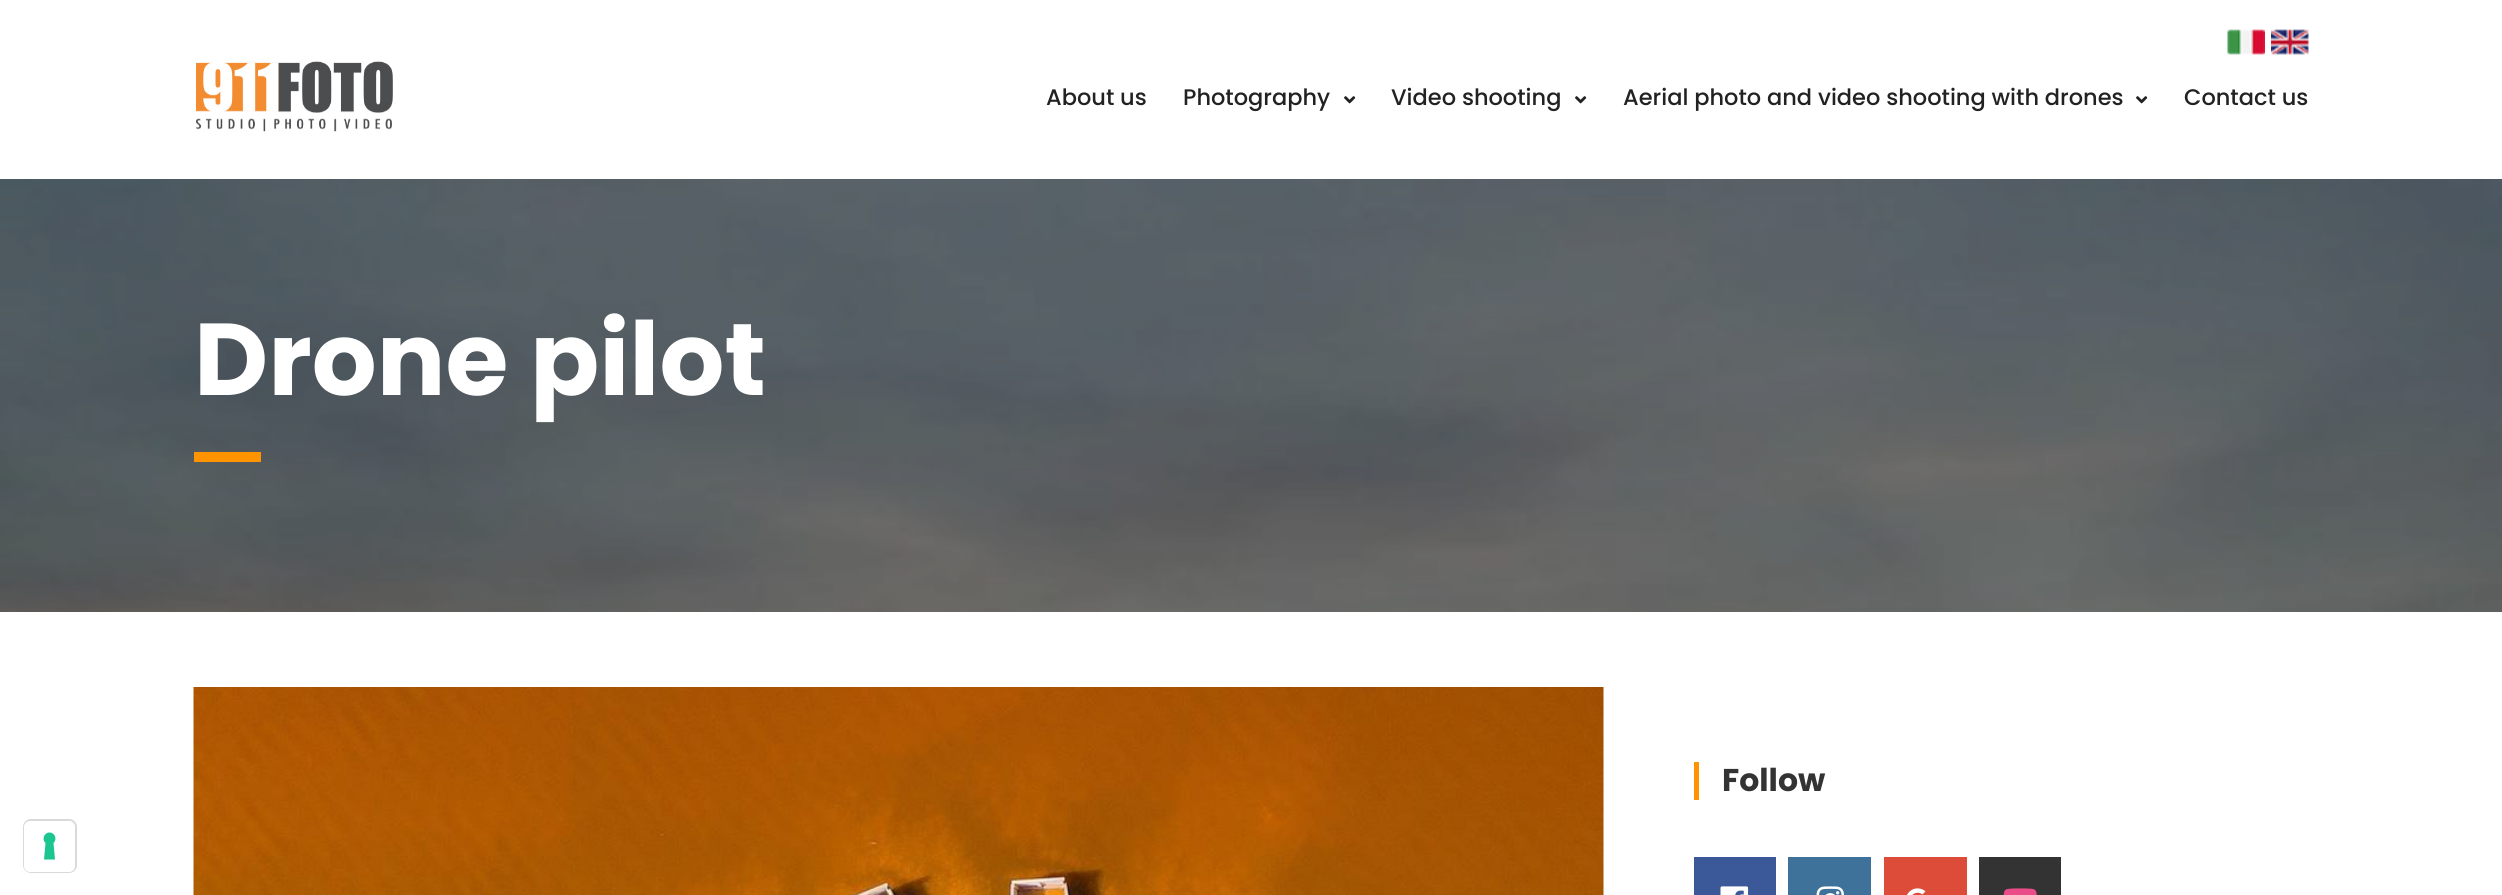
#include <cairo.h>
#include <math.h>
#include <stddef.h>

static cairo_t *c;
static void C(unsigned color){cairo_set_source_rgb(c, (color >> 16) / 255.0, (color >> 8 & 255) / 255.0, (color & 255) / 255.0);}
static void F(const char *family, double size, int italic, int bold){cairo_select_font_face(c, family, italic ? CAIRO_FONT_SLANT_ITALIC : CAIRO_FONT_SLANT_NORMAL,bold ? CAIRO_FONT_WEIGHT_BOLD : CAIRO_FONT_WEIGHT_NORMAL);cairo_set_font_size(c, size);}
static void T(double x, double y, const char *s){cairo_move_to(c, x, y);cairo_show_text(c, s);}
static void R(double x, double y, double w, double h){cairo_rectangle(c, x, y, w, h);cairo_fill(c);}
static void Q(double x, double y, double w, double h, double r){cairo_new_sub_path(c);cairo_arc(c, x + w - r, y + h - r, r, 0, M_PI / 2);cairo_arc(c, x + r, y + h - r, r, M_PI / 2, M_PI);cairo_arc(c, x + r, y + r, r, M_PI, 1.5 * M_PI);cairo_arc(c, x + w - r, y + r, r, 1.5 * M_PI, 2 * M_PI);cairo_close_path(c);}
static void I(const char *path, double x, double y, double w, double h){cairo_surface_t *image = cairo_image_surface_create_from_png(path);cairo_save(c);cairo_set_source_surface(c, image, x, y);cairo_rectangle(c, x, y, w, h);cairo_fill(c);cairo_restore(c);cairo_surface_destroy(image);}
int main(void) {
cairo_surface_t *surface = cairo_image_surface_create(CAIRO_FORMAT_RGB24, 2502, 895);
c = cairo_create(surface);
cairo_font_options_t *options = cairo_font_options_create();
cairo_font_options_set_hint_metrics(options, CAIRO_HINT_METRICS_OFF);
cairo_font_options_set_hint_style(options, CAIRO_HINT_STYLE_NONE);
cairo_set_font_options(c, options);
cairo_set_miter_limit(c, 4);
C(0xffffff);
cairo_paint(c);
I("1.png",2227,29,38,26);
I("2.png",2271,29,38,26);
I("3.png",196,61,197,71);
F("Poppins Medium",22.5,0,0);
C(0x222222);
T(1046,105,"About us");
T(1183,105,"Photography");
I("4.png",1344,96,12,8);
T(1391,105,"Video shooting");
I("4.png",1575,96,12,8);
T(1623,105,"Aerial photo and video shooting with drones");
I("4.png",2136,96,12,8);
T(2184,105,"Contact us");
I("5.png",0,179,2502,433);
F("Poppins",102,0,1);
C(0xffffff);
T(194,395,"Drone pilot");
C(0xff9400);
R(194,452,67,10);
I("6.png",193,687,1411,208);
R(1694,762,5,38);
F("Poppins",31.5,0,1);
C(0x333333);
T(1722,791,"Follow");
C(0x3b5998);
R(1694,857,82,38);
I("7.png",1720,886,29,9);
C(0x3f729b);
R(1788,857,83,38);
I("8.png",1816,886,28,9);
C(0xdd4b39);
R(1884,857,83,38);
I("9.png",1907,888,19,7);
C(0x333333);
R(1979,857,82,38);
I("10.png",2003,888,34,7);
Q(24,820,52,52,7);
C(0xd9d9d9);
cairo_stroke(c);
C(0xffffff);
Q(24,821,51,51,6);
cairo_fill(c);
C(0x1cc691);
cairo_set_fill_rule(c,CAIRO_FILL_RULE_EVEN_ODD);
cairo_new_path(c);
cairo_move_to(c,49.5,832.5);
cairo_curve_to(c,55,832.5,57.5,839.5,53.5,843);
cairo_line_to(c,55,859.5);
cairo_line_to(c,44,859.5);
cairo_line_to(c,45.5,843);
cairo_curve_to(c,41.5,839.5,44,832.5,49.5,832.5);
cairo_close_path(c);
cairo_fill(c);
cairo_surface_write_to_png(surface, "o.png");
cairo_font_options_destroy(options);
cairo_destroy(c);
cairo_surface_destroy(surface);
return 0;
}
